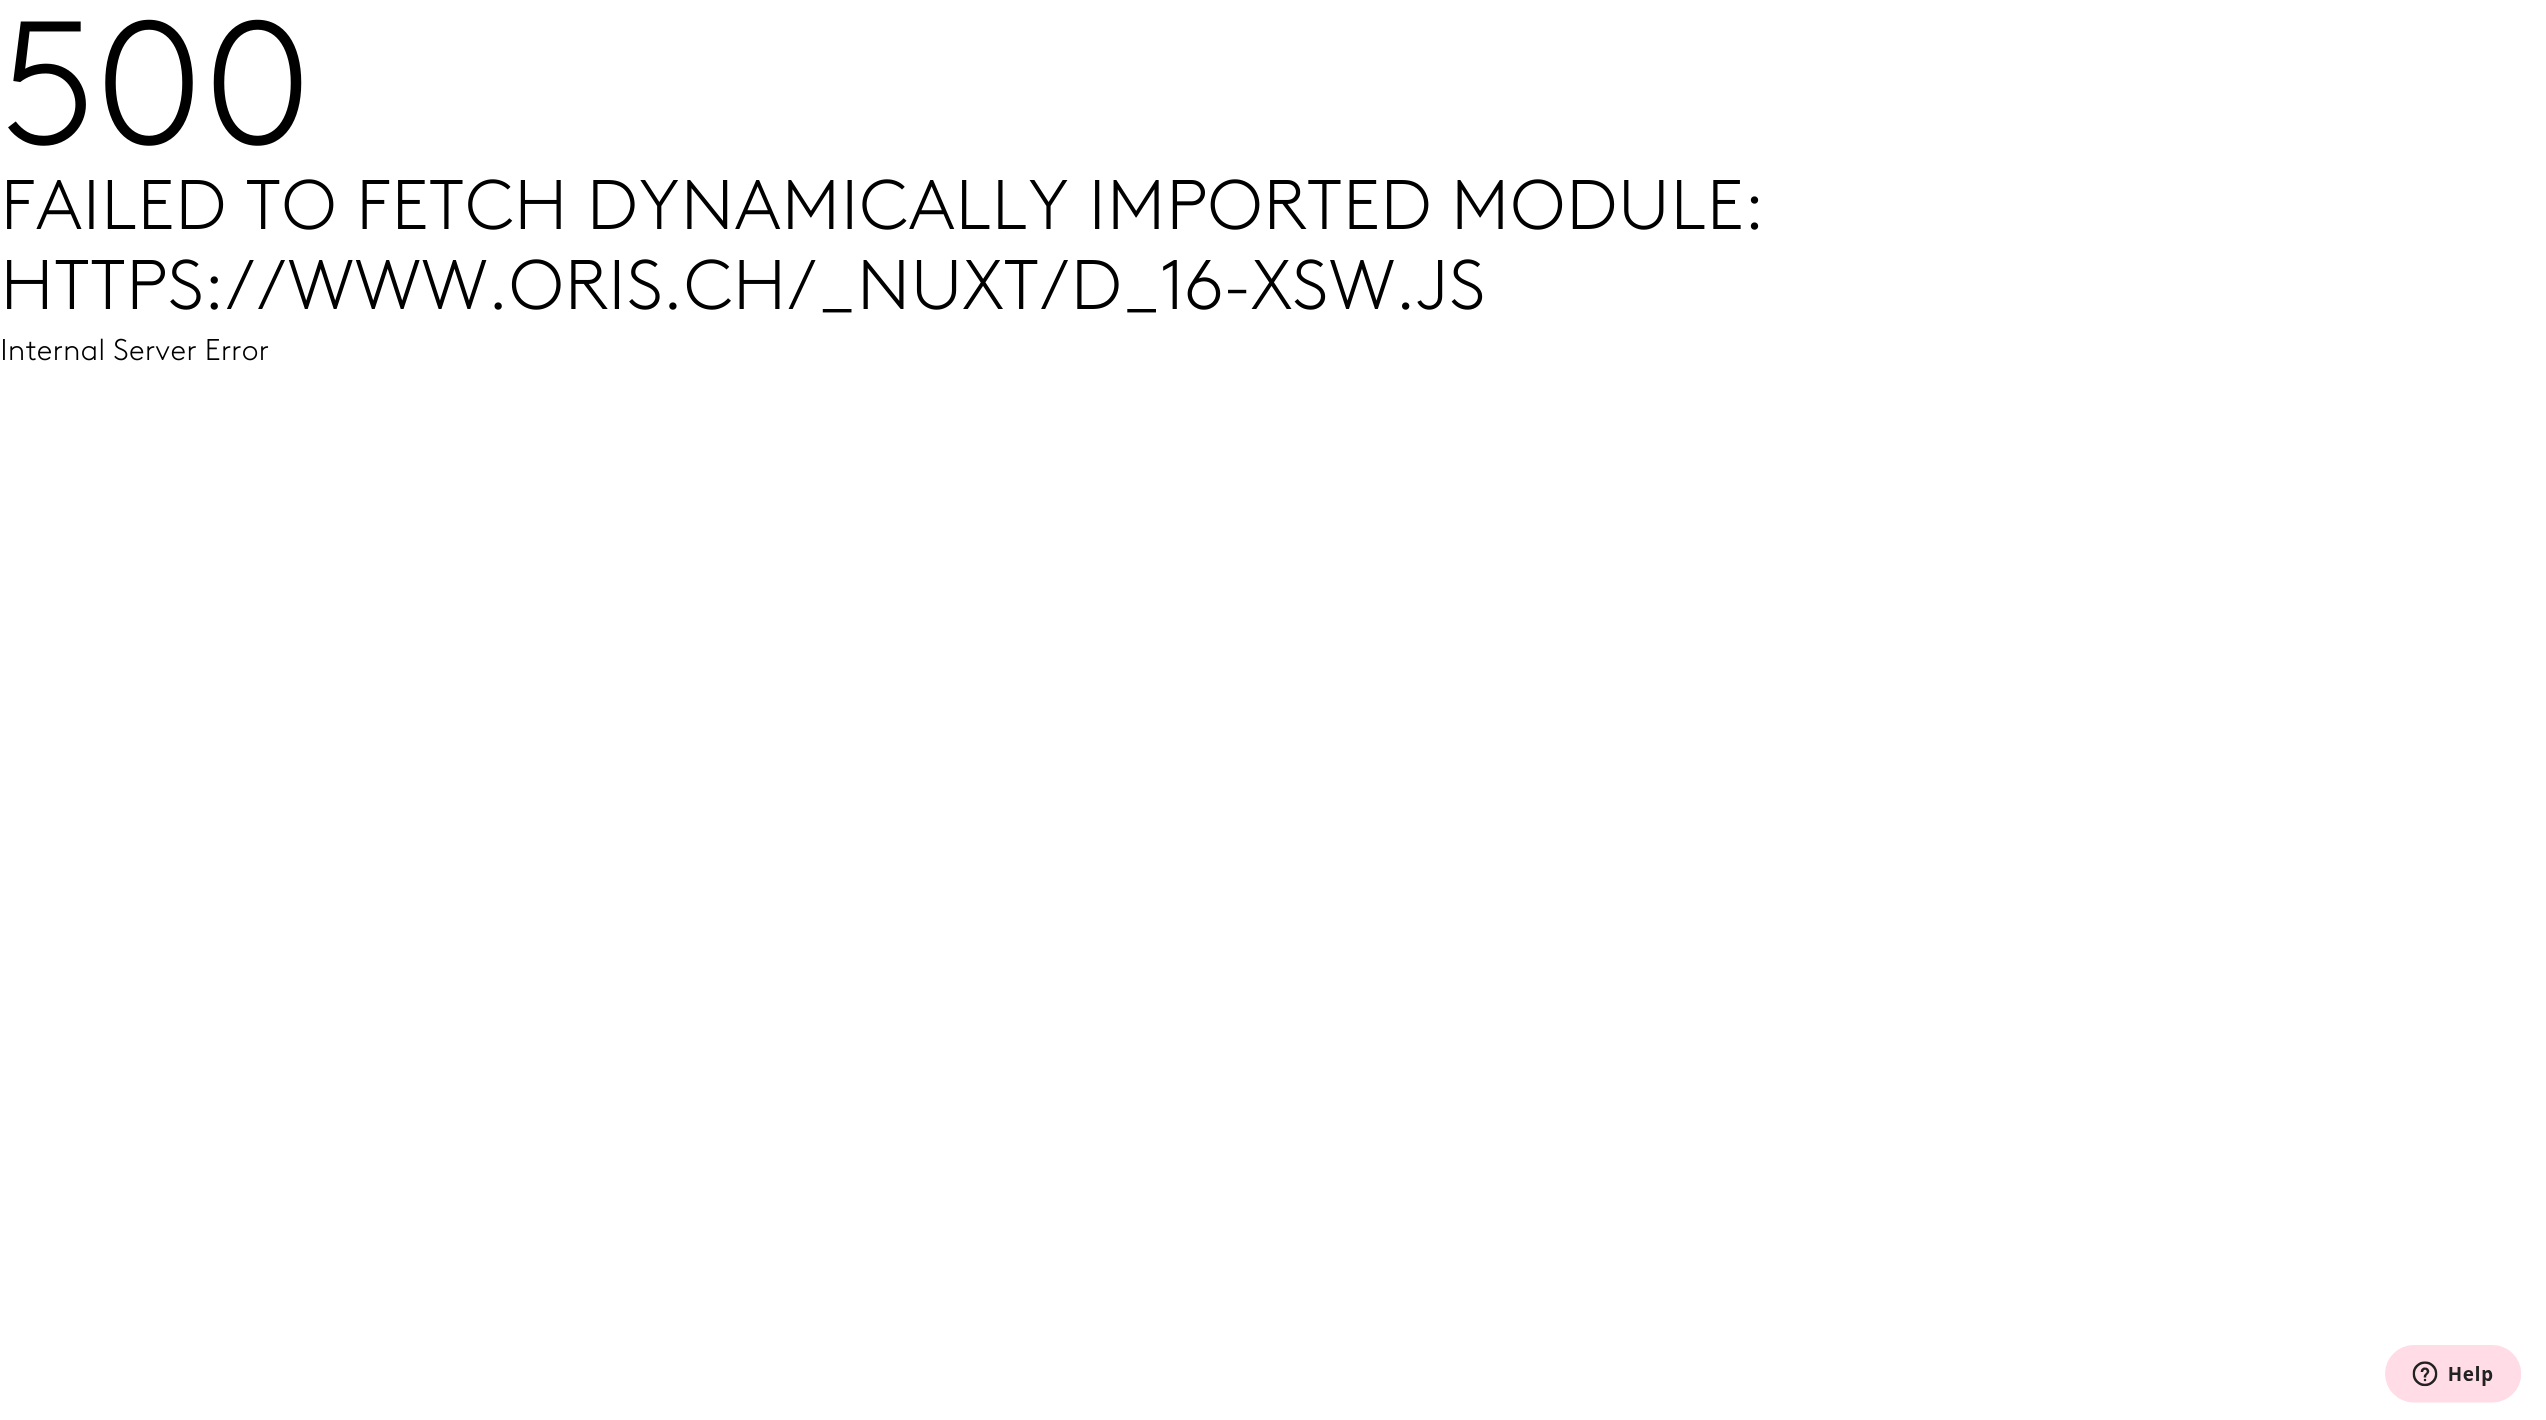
#include <cairo.h>
#include <math.h>
#include <stddef.h>

static cairo_t *c;
static void C(unsigned color){cairo_set_source_rgb(c, (color >> 16) / 255.0, (color >> 8 & 255) / 255.0, (color & 255) / 255.0);}
static void F(const char *family, double size, int italic, int bold){cairo_select_font_face(c, family, italic ? CAIRO_FONT_SLANT_ITALIC : CAIRO_FONT_SLANT_NORMAL,bold ? CAIRO_FONT_WEIGHT_BOLD : CAIRO_FONT_WEIGHT_NORMAL);cairo_set_font_size(c, size);}
static void T(double x, double y, const char *s){cairo_move_to(c, x, y);cairo_show_text(c, s);}
static void I(const char *path, double x, double y, double w, double h){cairo_surface_t *image = cairo_image_surface_create_from_png(path);cairo_save(c);cairo_set_source_surface(c, image, x, y);cairo_rectangle(c, x, y, w, h);cairo_fill(c);cairo_restore(c);cairo_surface_destroy(image);}
int main(void) {
cairo_surface_t *surface = cairo_image_surface_create(CAIRO_FORMAT_RGB24, 2546, 1420);
c = cairo_create(surface);
cairo_font_options_t *options = cairo_font_options_create();
cairo_font_options_set_hint_metrics(options, CAIRO_HINT_METRICS_OFF);
cairo_font_options_set_hint_style(options, CAIRO_HINT_STYLE_NONE);
cairo_set_font_options(c, options);
cairo_set_miter_limit(c, 4);
C(0xffffff);
cairo_paint(c);
F("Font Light",175,0,0);
C(0x000000);
T(0,144,"500");
F("Font Light",70,0,0);
T(0,229,"FAILED TO FETCH DYNAMICALLY IMPORTED MODULE:");
T(0,309,"HTTPS://WWW.ORIS.CH/_NUXT/D_16-XSW.JS");
F("Font Light",30,0,0);
T(0,360,"Internal Server Error");
I("1.png",2385,1345,136,58);
cairo_surface_write_to_png(surface, "o.png");
cairo_font_options_destroy(options);
cairo_destroy(c);
cairo_surface_destroy(surface);
return 0;
}
